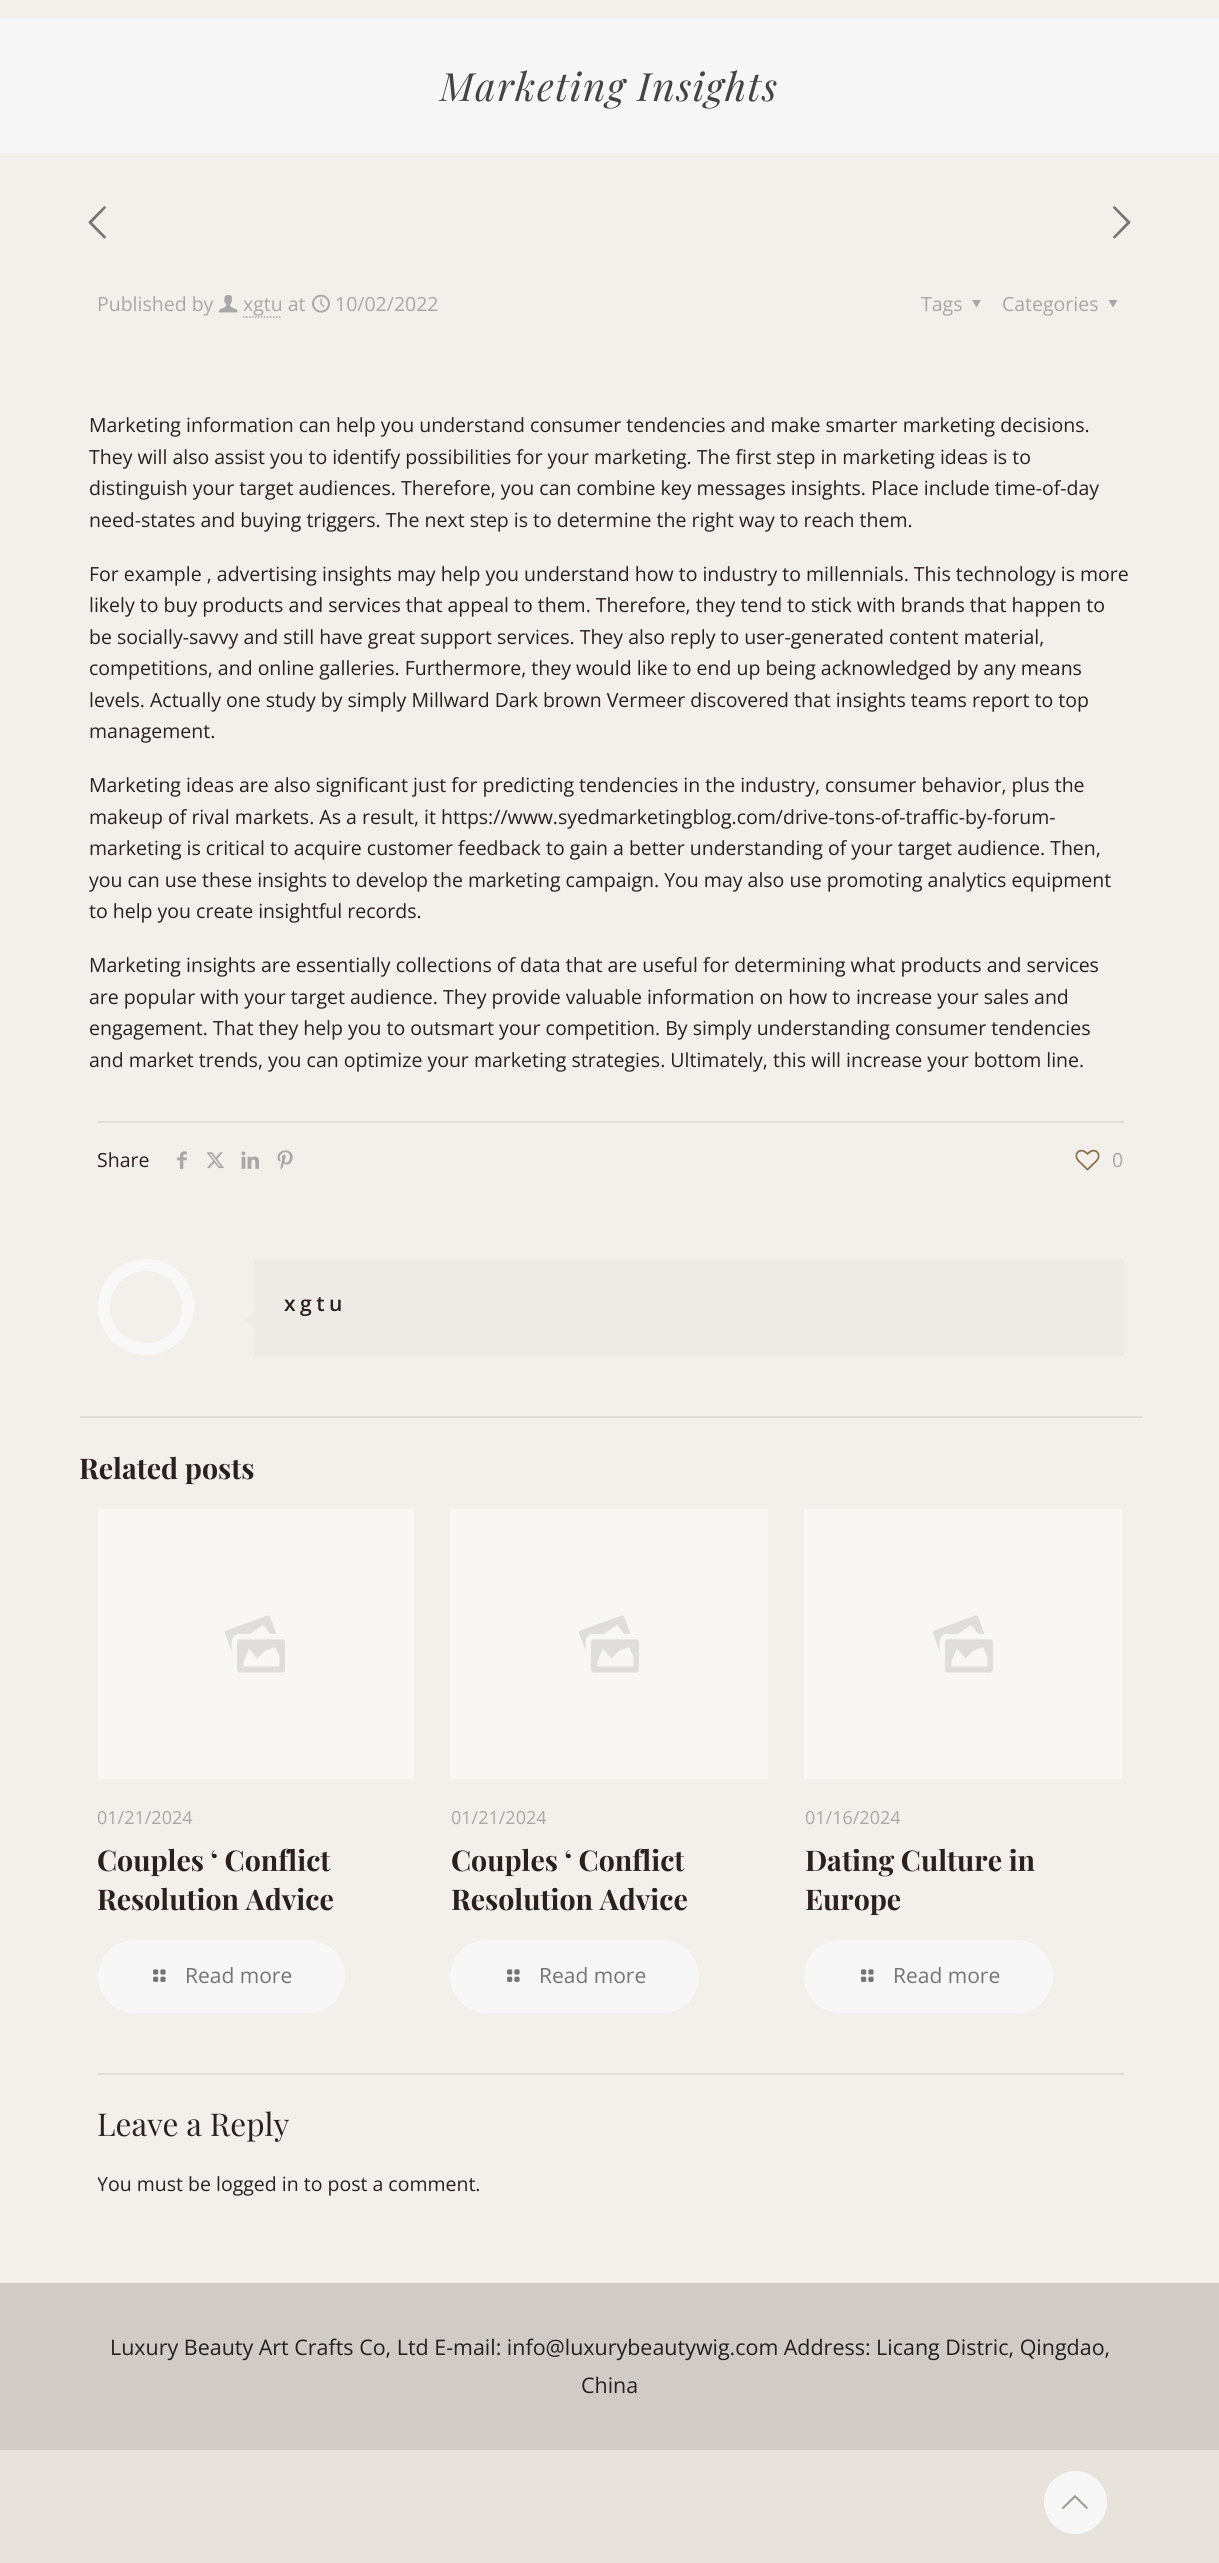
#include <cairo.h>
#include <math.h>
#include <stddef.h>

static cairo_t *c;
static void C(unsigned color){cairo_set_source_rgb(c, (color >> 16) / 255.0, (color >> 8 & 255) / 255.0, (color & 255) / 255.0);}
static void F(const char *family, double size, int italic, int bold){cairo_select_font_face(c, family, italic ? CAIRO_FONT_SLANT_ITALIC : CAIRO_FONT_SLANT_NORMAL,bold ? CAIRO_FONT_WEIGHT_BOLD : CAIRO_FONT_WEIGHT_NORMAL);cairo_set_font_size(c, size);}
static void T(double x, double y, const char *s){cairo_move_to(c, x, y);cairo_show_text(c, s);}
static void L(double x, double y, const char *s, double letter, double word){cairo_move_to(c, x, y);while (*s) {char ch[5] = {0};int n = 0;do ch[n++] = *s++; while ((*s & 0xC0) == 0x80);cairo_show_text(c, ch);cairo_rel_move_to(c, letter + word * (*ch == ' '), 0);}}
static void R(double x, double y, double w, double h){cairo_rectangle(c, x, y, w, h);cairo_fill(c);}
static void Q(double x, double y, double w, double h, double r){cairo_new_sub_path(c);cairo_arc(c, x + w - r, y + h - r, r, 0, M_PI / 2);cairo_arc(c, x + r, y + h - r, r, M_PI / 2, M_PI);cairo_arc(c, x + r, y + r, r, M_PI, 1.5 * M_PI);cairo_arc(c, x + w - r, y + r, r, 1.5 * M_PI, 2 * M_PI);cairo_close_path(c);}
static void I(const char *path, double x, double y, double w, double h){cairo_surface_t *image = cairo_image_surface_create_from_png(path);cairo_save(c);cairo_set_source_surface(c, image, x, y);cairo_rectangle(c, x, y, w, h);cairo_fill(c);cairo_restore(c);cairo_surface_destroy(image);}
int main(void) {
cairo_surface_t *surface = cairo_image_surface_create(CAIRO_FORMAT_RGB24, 1219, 2563);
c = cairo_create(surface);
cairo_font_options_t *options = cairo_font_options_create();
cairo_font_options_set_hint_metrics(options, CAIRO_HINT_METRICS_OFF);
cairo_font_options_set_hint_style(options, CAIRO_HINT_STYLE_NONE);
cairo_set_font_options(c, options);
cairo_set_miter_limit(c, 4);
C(0xf3efeb);
cairo_paint(c);
C(0xf7f7f7);
R(0,18,1219,135);
F("Playfair Display",39,1,0);
C(0x444444);
L(440,101,"Marketing Insights",1.5,0);
I("1.png",88,206,18,33);
I("2.png",1113,206,18,33);
F("Open Sans",19.5,0,0);
C(0xa8a8a8);
T(97,311,"Published by");
I("3.png",219,294,19,19);
T(243,311,"xgtu at");
cairo_new_path(c);
cairo_move_to(c,243,317);
cairo_line_to(c,282,317);
cairo_set_line_width(c,1.5);
cairo_set_dash(c,(double[]){1.5,1.5},2,0);
cairo_stroke(c);
I("4.png",312,294,18,19);
T(335,311,"10/02/2022");
T(921,311,"Tags");
cairo_new_path(c);
cairo_move_to(c,981,300);
cairo_line_to(c,976.5,307.5);
cairo_line_to(c,972,300);
cairo_close_path(c);
cairo_fill(c);
T(1002,311,"Categories");
cairo_new_path(c);
cairo_move_to(c,1117.5,300);
cairo_line_to(c,1113,307.5);
cairo_line_to(c,1108.5,300);
cairo_close_path(c);
cairo_fill(c);
C(0x2a201c);
T(89,432,"Marketing information can help you understand consumer tendencies and make smarter marketing decisions.");
T(89,464,"They will also assist you to identify possibilities for your marketing. The first step in marketing ideas is to");
T(89,495,"distinguish your target audiences. Therefore, you can combine key messages insights. Place include time-of-day");
T(89,527,"need-states and buying triggers. The next step is to determine the right way to reach them.");
T(89,581,"For example , advertising insights may help you understand how to industry to millennials. This technology is more");
T(89,612,"likely to buy products and services that appeal to them. Therefore, they tend to stick with brands that happen to");
T(89,644,"be socially-savvy and still have great support services. They also reply to user-generated content material,");
T(89,675,"competitions, and online galleries. Furthermore, they would like to end up being acknowledged by any means");
T(89,707,"levels. Actually one study by simply Millward Dark brown Vermeer discovered that insights teams report to top");
T(89,738,"management.");
T(89,792,"Marketing ideas are also significant just for predicting tendencies in the industry, consumer behavior, plus the");
T(89,824,"makeup of rival markets. As a result, it https://www.syedmarketingblog.com/drive-tons-of-traffic-by-forum-");
T(89,855,"marketing is critical to acquire customer feedback to gain a better understanding of your target audience. Then,");
T(89,887,"you can use these insights to develop the marketing campaign. You may also use promoting analytics equipment");
T(89,918,"to help you create insightful records.");
T(89,972,"Marketing insights are essentially collections of data that are useful for determining what products and services");
T(89,1004,"are popular with your target audience. They provide valuable information on how to increase your sales and");
T(89,1035,"engagement. That they help you to outsmart your competition. By simply understanding consumer tendencies");
T(89,1067,"and market trends, you can optimize your marketing strategies. Ultimately, this will increase your bottom line.");
C(0xe0dcd8);
R(98,1121,1026,2);
C(0x2a201c);
T(97,1167,"Share");
I("5.png",177,1151,10,18);
I("6.png",206,1152,18,17);
I("7.png",241,1151,18,18);
I("8.png",277,1150,16,20);
I("9.png",1075,1149,25,22);
C(0xa8a8a8);
T(1112,1167,"0");
cairo_new_path(c);
cairo_arc(c,146,1307,42,0,2 * M_PI);
C(0xf8f8f8);
cairo_set_line_width(c,12);
cairo_set_dash(c,NULL,0,0);
cairo_stroke(c);
C(0xeeeae6);
R(255,1259,869,97);
F("Open Sans SemiBold",21,0,0);
C(0x2a201c);
L(284,1311,"xgtu",4.5,0);
C(0xeeeae6);
cairo_new_path(c);
cairo_move_to(c,255,1311);
cairo_line_to(c,255,1329);
cairo_line_to(c,246,1320);
cairo_close_path(c);
cairo_fill(c);
C(0xe0dcd8);
R(80,1416,1062,2);
F("Playfair Display",28.5,0,1);
C(0x2a201c);
T(79,1479,"Related posts");
C(0xf9f7f5);
R(98,1509,316,270);
I("10.png",225,1615,60,58);
F("Open Sans",18,0,0);
C(0xa8a8a8);
T(97,1824,"01/21/2024");
F("Playfair Display",28.5,0,1);
C(0x2a201c);
T(97,1871,"Couples ‘ Conflict");
T(97,1910,"Resolution Advice");
C(0xf7f7f7);
Q(98,1940,247,73,36.5);
cairo_fill(c);
I("11.png",153,1969,13,13);
F("Open Sans",21,0,0);
C(0x747474);
T(185,1983,"Read more");
C(0xf9f7f5);
R(450,1509,318,270);
I("10.png",579,1615,60,58);
F("Open Sans",18,0,0);
C(0xa8a8a8);
T(451,1824,"01/21/2024");
F("Playfair Display",28.5,0,1);
C(0x2a201c);
T(451,1871,"Couples ‘ Conflict");
T(451,1910,"Resolution Advice");
C(0xf7f7f7);
Q(450,1940,249,73,36.5);
cairo_fill(c);
I("11.png",507,1969,13,13);
F("Open Sans",21,0,0);
C(0x747474);
T(539,1983,"Read more");
C(0xf9f7f5);
R(804,1509,318,270);
I("10.png",933,1615,60,58);
F("Open Sans",18,0,0);
C(0xa8a8a8);
T(805,1824,"01/16/2024");
F("Playfair Display",28.5,0,1);
C(0x2a201c);
T(805,1871,"Dating Culture in");
T(805,1910,"Europe");
C(0xf7f7f7);
Q(804,1940,249,73,36.5);
cairo_fill(c);
I("11.png",861,1969,13,13);
F("Open Sans",21,0,0);
C(0x747474);
T(893,1983,"Read more");
C(0xe0dcd8);
R(98,2073,1026,2);
F("Playfair Display",31.5,0,0);
C(0x2a201c);
T(97,2136,"Leave a Reply");
cairo_save(c);
cairo_rectangle(c,98,2075,1026,148);
cairo_clip(c);
F("Open Sans",19.5,0,0);
T(97,2191,"You must be");
cairo_restore(c);
F("Open Sans",19.5,0,0);
T(216,2191,"logged in to post a comment.");
C(0xe7e2dc);
R(0,2450,1219,113);
C(0xd0cbc6);
R(0,2283,1219,167);
F("Open Sans",21.45,0,0);
C(0x222120);
T(110,2355,"Luxury Beauty Art Crafts Co, Ltd E-mail: info@luxurybeautywig.com Address: Licang Distric, Qingdao,");
T(581,2393,"China");
C(0xf7f7f7);
cairo_new_path(c);
cairo_arc(c,1075.5,2502.5,31.5,0,2 * M_PI);
cairo_fill(c);
I("12.png",1062,2495,26,14);
cairo_surface_write_to_png(surface, "o.png");
cairo_font_options_destroy(options);
cairo_destroy(c);
cairo_surface_destroy(surface);
return 0;
}
